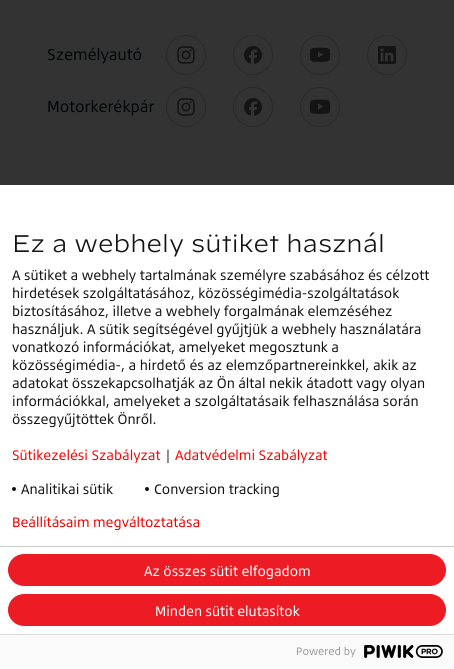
#include <cairo.h>
#include <math.h>
#include <stddef.h>

static cairo_t *c;
static void C(unsigned color){cairo_set_source_rgb(c, (color >> 16) / 255.0, (color >> 8 & 255) / 255.0, (color & 255) / 255.0);}
static void F(const char *family, double size, int italic, int bold){cairo_select_font_face(c, family, italic ? CAIRO_FONT_SLANT_ITALIC : CAIRO_FONT_SLANT_NORMAL,bold ? CAIRO_FONT_WEIGHT_BOLD : CAIRO_FONT_WEIGHT_NORMAL);cairo_set_font_size(c, size);}
static void T(double x, double y, const char *s){cairo_move_to(c, x, y);cairo_show_text(c, s);}
static void R(double x, double y, double w, double h){cairo_rectangle(c, x, y, w, h);cairo_fill(c);}
static void Q(double x, double y, double w, double h, double r){cairo_new_sub_path(c);cairo_arc(c, x + w - r, y + h - r, r, 0, M_PI / 2);cairo_arc(c, x + r, y + h - r, r, M_PI / 2, M_PI);cairo_arc(c, x + r, y + r, r, M_PI, 1.5 * M_PI);cairo_arc(c, x + w - r, y + r, r, 1.5 * M_PI, 2 * M_PI);cairo_close_path(c);}
static void I(const char *path, double x, double y, double w, double h){cairo_surface_t *image = cairo_image_surface_create_from_png(path);cairo_save(c);cairo_set_source_surface(c, image, x, y);cairo_rectangle(c, x, y, w, h);cairo_fill(c);cairo_restore(c);cairo_surface_destroy(image);}
int main(void) {
cairo_surface_t *surface = cairo_image_surface_create(CAIRO_FORMAT_RGB24, 454, 669);
c = cairo_create(surface);
cairo_font_options_t *options = cairo_font_options_create();
cairo_font_options_set_hint_metrics(options, CAIRO_HINT_METRICS_OFF);
cairo_font_options_set_hint_style(options, CAIRO_HINT_STYLE_NONE);
cairo_set_font_options(c, options);
cairo_set_miter_limit(c, 4);
C(0x333333);
cairo_paint(c);
F("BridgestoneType",16,0,0);
C(0x010507);
T(47,60,"Személyautó");
cairo_new_path(c);
cairo_arc(c,186,55,19.5,0,2 * M_PI);
C(0x292929);
cairo_set_line_width(c,1);
cairo_stroke(c);
I("1.png",177,46,18,18);
cairo_arc(c,253,55,19.5,0,2 * M_PI);
cairo_stroke(c);
I("2.png",244,46,18,18);
cairo_arc(c,320,55,19.5,0,2 * M_PI);
cairo_stroke(c);
I("3.png",309,47,22,15);
cairo_arc(c,387,55,19.5,0,2 * M_PI);
cairo_stroke(c);
I("4.png",378,46,18,18);
C(0x010507);
T(47,112,"Motorkerékpár");
cairo_new_path(c);
cairo_arc(c,186,107,19.5,0,2 * M_PI);
C(0x292929);
cairo_stroke(c);
I("1.png",177,98,18,18);
cairo_arc(c,253,107,19.5,0,2 * M_PI);
cairo_stroke(c);
I("2.png",244,98,18,18);
cairo_arc(c,320,107,19.5,0,2 * M_PI);
cairo_stroke(c);
I("3.png",309,99,22,15);
C(0xffffff);
R(0,185,454,449);
F("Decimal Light",24,0,0);
C(0x131313);
T(12,252,"Ez a webhely sütiket használ");
F("BridgestoneType",14,0,0);
T(12,280,"A sütiket a webhely tartalmának személyre szabásához és célzott");
T(12,298,"hirdetések szolgáltatásához, közösségimédia-szolgáltatások");
T(12,316,"biztosításához, illetve a webhely forgalmának elemzéséhez");
T(12,334,"használjuk. A sütik segítségével gyűjtjük a webhely használatára");
T(12,352,"vonatkozó információkat, amelyeket megosztunk a");
T(12,370,"közösségimédia-, a hirdető és az elemzőpartnereinkkel, akik az");
T(12,388,"adatokat összekapcsolhatják az Ön által nekik átadott vagy olyan");
T(12,406,"információkkal, amelyeket a szolgáltatásaik felhasználása során");
T(12,424,"összegyűjtöttek Önről.");
C(0xff0000);
T(12,460,"Sütikezelési Szabályzat");
C(0x131313);
T(164,460,"|");
C(0xff0000);
T(175,460,"Adatvédelmi Szabályzat");
C(0x131313);
cairo_new_path(c);
cairo_arc(c,14,489,2,0,2 * M_PI);
cairo_fill(c);
T(21,494,"Analitikai sütik");
cairo_new_path(c);
cairo_arc(c,147,489,2,0,2 * M_PI);
cairo_fill(c);
T(154,494,"Conversion tracking");
C(0xcccccc);
R(0,546,454,1);
C(0xed1c24);
Q(9,555,436,30,15);
cairo_fill_preserve(c);
cairo_set_line_width(c,2);
cairo_stroke(c);
C(0xffffff);
T(144,576,"Az összes sütit elfogadom");
C(0xed1c24);
Q(9,595,436,30,15);
cairo_fill_preserve(c);
cairo_stroke(c);
C(0xffffff);
T(155,616,"Minden sütit elutasítok");
C(0xef0000);
T(12,527,"Beállításaim megváltoztatása");
C(0xfafafa);
R(0,635,454,34);
C(0xdddddd);
R(0,634,454,1);
F("BridgestoneType",11,0,0);
C(0x999999);
T(296,655,"Powered by");
I("5.png",364,645,79,13);
cairo_surface_write_to_png(surface, "o.png");
cairo_font_options_destroy(options);
cairo_destroy(c);
cairo_surface_destroy(surface);
return 0;
}
